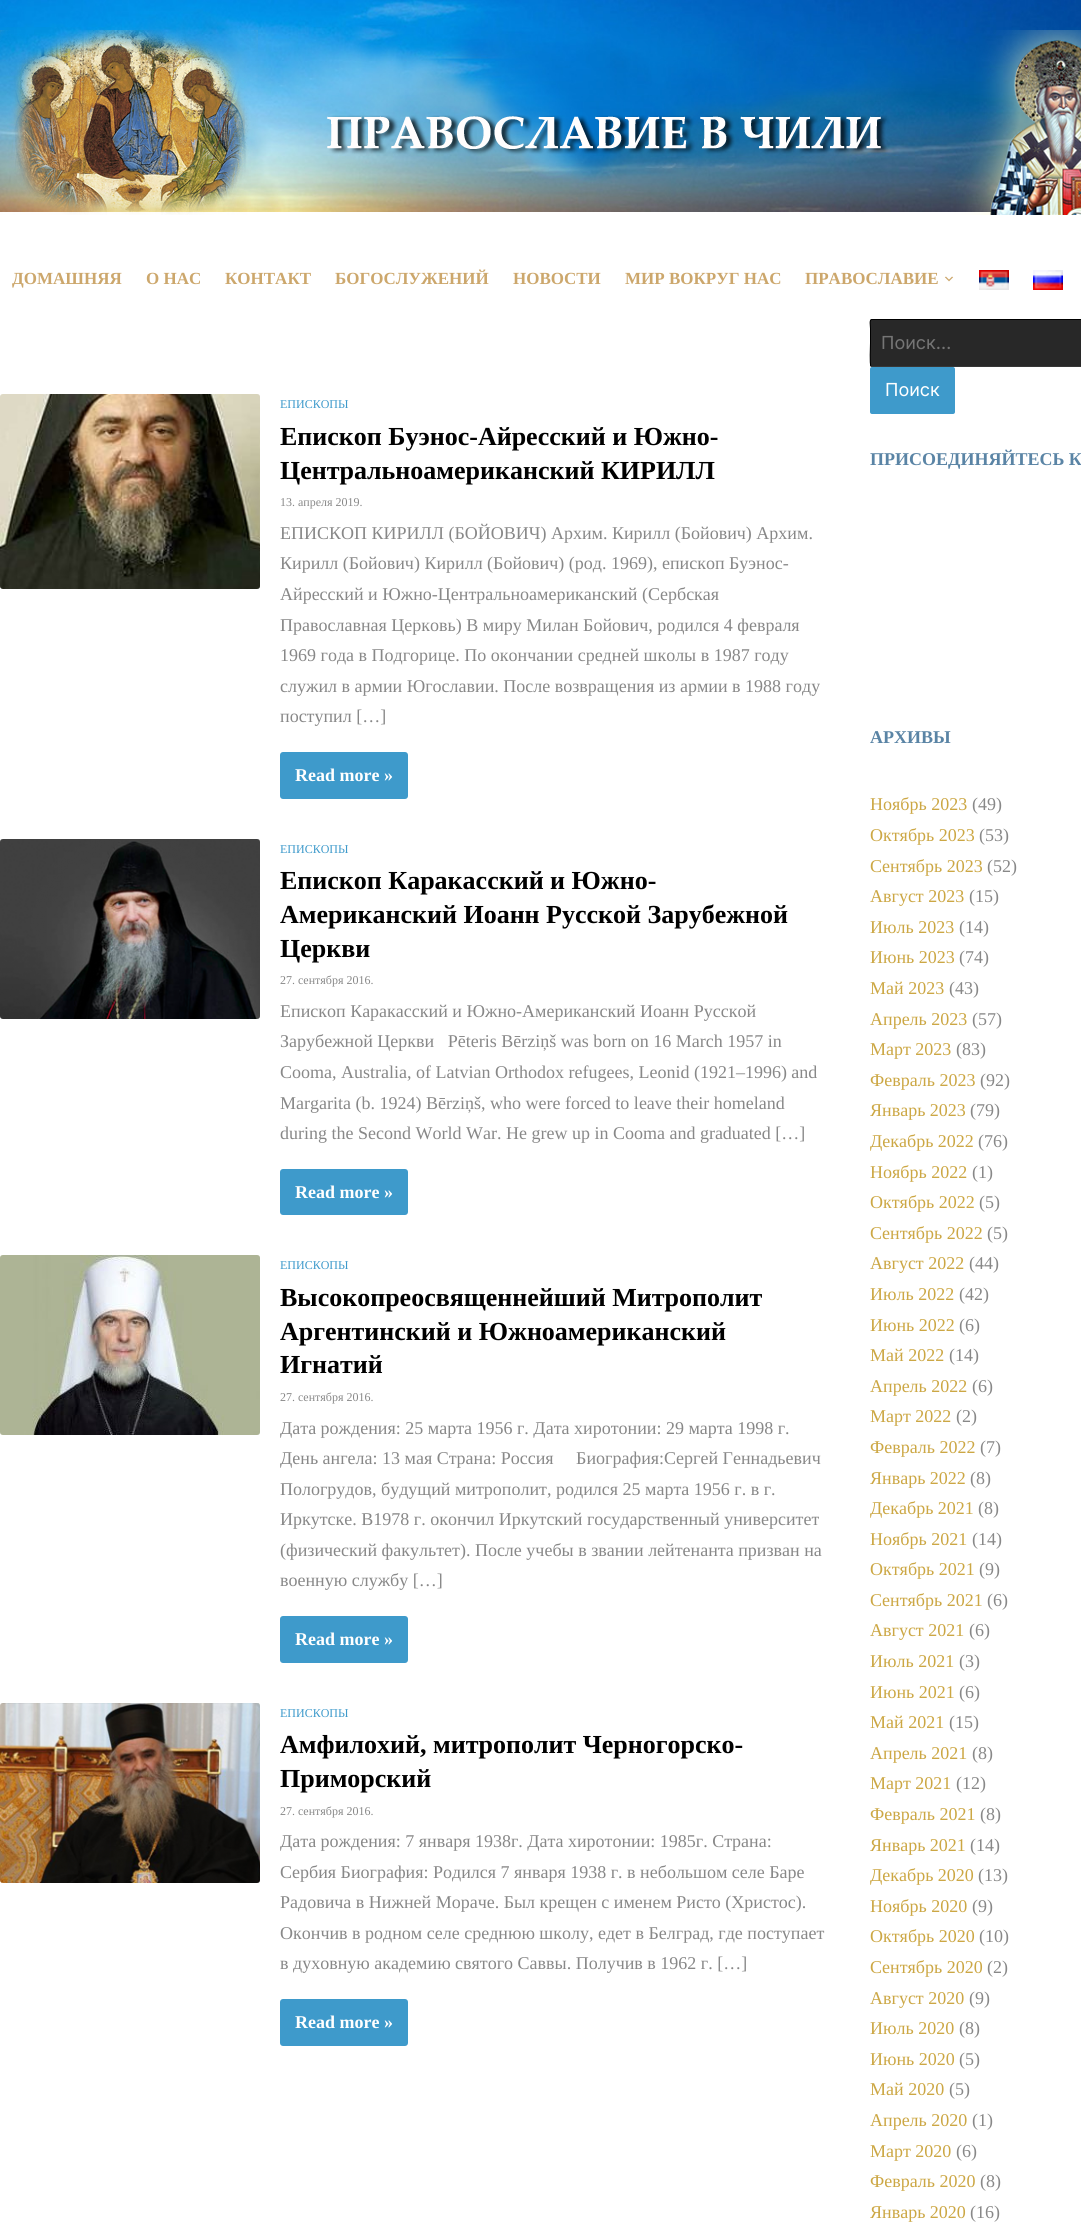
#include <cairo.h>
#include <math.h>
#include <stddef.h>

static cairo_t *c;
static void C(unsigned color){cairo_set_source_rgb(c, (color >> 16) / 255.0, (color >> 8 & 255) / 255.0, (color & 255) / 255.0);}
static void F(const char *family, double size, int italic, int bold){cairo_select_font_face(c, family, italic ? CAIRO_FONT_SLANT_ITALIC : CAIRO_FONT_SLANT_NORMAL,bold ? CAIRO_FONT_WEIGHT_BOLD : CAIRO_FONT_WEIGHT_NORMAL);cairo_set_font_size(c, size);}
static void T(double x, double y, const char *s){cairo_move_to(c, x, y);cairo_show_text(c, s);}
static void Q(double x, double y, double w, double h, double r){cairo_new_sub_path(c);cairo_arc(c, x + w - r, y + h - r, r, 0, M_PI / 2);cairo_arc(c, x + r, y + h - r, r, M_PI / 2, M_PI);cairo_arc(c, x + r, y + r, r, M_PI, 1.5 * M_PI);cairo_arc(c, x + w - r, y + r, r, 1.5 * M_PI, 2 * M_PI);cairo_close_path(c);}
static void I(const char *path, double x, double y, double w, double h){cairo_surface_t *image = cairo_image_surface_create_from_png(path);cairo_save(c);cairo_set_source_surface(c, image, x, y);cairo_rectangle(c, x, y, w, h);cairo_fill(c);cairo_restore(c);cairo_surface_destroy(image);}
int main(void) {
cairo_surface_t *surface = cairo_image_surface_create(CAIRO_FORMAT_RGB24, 1081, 2240);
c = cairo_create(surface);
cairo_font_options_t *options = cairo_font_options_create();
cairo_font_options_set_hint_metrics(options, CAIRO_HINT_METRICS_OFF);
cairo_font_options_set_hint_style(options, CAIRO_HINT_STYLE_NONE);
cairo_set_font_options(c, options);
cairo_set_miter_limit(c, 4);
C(0xffffff);
cairo_paint(c);
I("1.png",0,0,1081,212);
I("2.png",0,30,1081,185);
F("Liberation Serif",17,0,1);
C(0xcca76c);
T(12,284,"ДОМАШНЯЯ");
T(146,284,"О НАС");
T(225,284,"КОНТАКТ");
T(335,284,"БОГОСЛУЖЕНИЙ");
T(513,284,"НОВОСТИ");
T(625,284,"МИР ВОКРУГ НАС");
T(805,284,"ПРАВОСЛАВИЕ");
I("3.png",944,276,10,6);
I("4.png",979,270,30,20);
I("5.png",1033,270,30,20);
I("6.png",0,394,260,195);
F("Liberation Serif",12,0,0);
C(0x3e9acb);
T(280,408,"ЕПИСКОПЫ");
F("Liberation Serif",26,0,1);
C(0x000000);
T(280,445,"Епископ Буэнос-Айресский и Южно-");
T(280,479,"Центральноамериканский КИРИЛЛ");
F("Liberation Serif",12,0,0);
C(0x888888);
T(280,506,"13. апреля 2019.");
F("Liberation Serif",18,0,0);
T(280,539,"ЕПИСКОП КИРИЛЛ (БОЙОВИЧ) Архим. Кирилл (Бойович) Архим.");
T(280,569,"Кирилл (Бойович) Кирилл (Бойович) (род. 1969), епископ Буэнос-");
T(280,600,"Айресский и Южно-Центральноамериканский (Сербская");
T(280,631,"Православная Церковь) В миру Милан Бойович, родился 4 февраля");
T(280,661,"1969 года в Подгорице. По окончании средней школы в 1987 году");
T(280,692,"служил в армии Югославии. После возвращения из армии в 1988 году");
T(280,722,"поступил […]");
C(0x3e9acb);
Q(280,752,128,47,3);
cairo_fill(c);
F("Liberation Serif",18,0,1);
C(0xffffff);
T(295,781,"Read more »");
I("7.png",0,839,260,180);
F("Liberation Serif",12,0,0);
C(0x3e9acb);
T(280,853,"ЕПИСКОПЫ");
F("Liberation Serif",26,0,1);
C(0x000000);
T(280,889,"Епископ Каракасский и Южно-");
T(280,923,"Американский Иоанн Русской Зарубежной");
T(280,957,"Церкви");
F("Liberation Serif",12,0,0);
C(0x888888);
T(280,984,"27. сентября 2016.");
F("Liberation Serif",18,0,0);
T(280,1017,"Епископ Каракасский и Южно-Американский Иоанн Русской");
T(280,1047,"Зарубежной Церкви   Pēteris Bērziņš was born on 16 March 1957 in");
T(280,1078,"Cooma, Australia, of Latvian Orthodox refugees, Leonid (1921–1996) and");
T(280,1109,"Margarita (b. 1924) Bērziņš, who were forced to leave their homeland");
T(280,1139,"during the Second World War. He grew up in Cooma and graduated […]");
C(0x3e9acb);
Q(280,1169,128,46,3);
cairo_fill(c);
F("Liberation Serif",18,0,1);
C(0xffffff);
T(295,1198,"Read more »");
I("8.png",0,1255,260,180);
F("Liberation Serif",12,0,0);
C(0x3e9acb);
T(280,1269,"ЕПИСКОПЫ");
F("Liberation Serif",26,0,1);
C(0x000000);
T(280,1306,"Высокопреосвященнейший Митрополит");
T(280,1340,"Аргентинский и Южноамериканский");
T(280,1373,"Игнатий");
F("Liberation Serif",12,0,0);
C(0x888888);
T(280,1401,"27. сентября 2016.");
F("Liberation Serif",18,0,0);
T(280,1434,"Дата рождения: 25 марта 1956 г. Дата хиротонии: 29 марта 1998 г.");
T(280,1464,"День ангела: 13 мая Страна: Россия     Биография:Сергей Геннадьевич");
T(280,1495,"Пологрудов, будущий митрополит, родился 25 марта 1956 г. в г.");
T(280,1525,"Иркутске. В1978 г. окончил Иркутский государственный университет");
T(280,1556,"(физический факультет). После учебы в звании лейтенанта призван на");
T(280,1586,"военную службу […]");
C(0x3e9acb);
Q(280,1616,128,47,3);
cairo_fill(c);
F("Liberation Serif",18,0,1);
C(0xffffff);
T(295,1645,"Read more »");
I("9.png",0,1703,260,180);
F("Liberation Serif",12,0,0);
C(0x3e9acb);
T(280,1717,"ЕПИСКОПЫ");
F("Liberation Serif",26,0,1);
C(0x000000);
T(280,1753,"Амфилохий, митрополит Черногорско-");
T(280,1787,"Приморский");
F("Liberation Serif",12,0,0);
C(0x888888);
T(280,1815,"27. сентября 2016.");
F("Liberation Serif",18,0,0);
T(280,1847,"Дата рождения: 7 января 1938г. Дата хиротонии: 1985г. Страна:");
T(280,1878,"Сербия Биография: Родился 7 января 1938 г. в небольшом селе Баре");
T(280,1908,"Радовича в Нижней Мораче. Был крещен с именем Ристо (Христос).");
T(280,1939,"Окончив в родном селе среднюю школу, едет в Белград, где поступает");
T(280,1969,"в духовную академию святого Саввы. Получив в 1962 г. […]");
C(0x3e9acb);
Q(280,1999,128,47,3);
cairo_fill(c);
F("Liberation Serif",18,0,1);
C(0xffffff);
T(295,2028,"Read more »");
C(0x282828);
Q(870,319,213,48,2);
cairo_fill(c);
cairo_new_path(c);
cairo_move_to(c,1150,366);
cairo_line_to(c,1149,366.5);
cairo_line_to(c,872,366.5);
cairo_line_to(c,871,366);
C(0x373737);
cairo_set_line_width(c,1);
cairo_stroke(c);
cairo_new_path(c);
cairo_move_to(c,871,366);
cairo_curve_to(c,869.5,364.5,870.5,346,870.5,343);
cairo_line_to(c,870.5,328.5);
cairo_curve_to(c,870.5,325.5,869,319.5,872,319.5);
cairo_line_to(c,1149,319.5);
cairo_curve_to(c,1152,319.5,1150.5,325.5,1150.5,328.5);
cairo_line_to(c,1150.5,343);
cairo_curve_to(c,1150.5,346,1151.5,364.5,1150,366);
C(0x000000);
cairo_stroke(c);
F("Inter",18,0,0);
C(0x757575);
T(881,349,"Поиск…");
C(0x3e9acb);
Q(870,367,85,47,2);
cairo_fill(c);
C(0xffffff);
T(885,396,"Поиск");
F("Liberation Serif",18,0,1);
C(0x5a84a5);
T(870,465,"ПРИСОЕДИНЯЙТЕСЬ К");
T(870,743,"АРХИВЫ");
F("Liberation Serif",18,0,0);
C(0xcca744);
T(870,810,"Ноябрь 2023");
C(0x888888);
T(972,810,"(49)");
C(0xcca744);
T(870,841,"Октябрь 2023");
C(0x888888);
T(979,841,"(53)");
C(0xcca744);
T(870,872,"Сентябрь 2023");
C(0x888888);
T(987,872,"(52)");
C(0xcca744);
T(870,902,"Август 2023");
C(0x888888);
T(969,902,"(15)");
C(0xcca744);
T(870,933,"Июль 2023");
C(0x888888);
T(959,933,"(14)");
C(0xcca744);
T(870,963,"Июнь 2023");
C(0x888888);
T(959,963,"(74)");
C(0xcca744);
T(870,994,"Май 2023");
C(0x888888);
T(949,994,"(43)");
C(0xcca744);
T(870,1025,"Апрель 2023");
C(0x888888);
T(972,1025,"(57)");
C(0xcca744);
T(870,1055,"Март 2023");
C(0x888888);
T(956,1055,"(83)");
C(0xcca744);
T(870,1086,"Февраль 2023");
C(0x888888);
T(980,1086,"(92)");
C(0xcca744);
T(870,1116,"Январь 2023");
C(0x888888);
T(970,1116,"(79)");
C(0xcca744);
T(870,1147,"Декабрь 2022");
C(0x888888);
T(978,1147,"(76)");
C(0xcca744);
T(870,1178,"Ноябрь 2022");
C(0x888888);
T(972,1178,"(1)");
C(0xcca744);
T(870,1208,"Октябрь 2022");
C(0x888888);
T(979,1208,"(5)");
C(0xcca744);
T(870,1239,"Сентябрь 2022");
C(0x888888);
T(987,1239,"(5)");
C(0xcca744);
T(870,1269,"Август 2022");
C(0x888888);
T(969,1269,"(44)");
C(0xcca744);
T(870,1300,"Июль 2022");
C(0x888888);
T(959,1300,"(42)");
C(0xcca744);
T(870,1331,"Июнь 2022");
C(0x888888);
T(959,1331,"(6)");
C(0xcca744);
T(870,1361,"Май 2022");
C(0x888888);
T(949,1361,"(14)");
C(0xcca744);
T(870,1392,"Апрель 2022");
C(0x888888);
T(972,1392,"(6)");
C(0xcca744);
T(870,1422,"Март 2022");
C(0x888888);
T(956,1422,"(2)");
C(0xcca744);
T(870,1453,"Февраль 2022");
C(0x888888);
T(980,1453,"(7)");
C(0xcca744);
T(870,1484,"Январь 2022");
C(0x888888);
T(970,1484,"(8)");
C(0xcca744);
T(870,1514,"Декабрь 2021");
C(0x888888);
T(978,1514,"(8)");
C(0xcca744);
T(870,1545,"Ноябрь 2021");
C(0x888888);
T(972,1545,"(14)");
C(0xcca744);
T(870,1575,"Октябрь 2021");
C(0x888888);
T(979,1575,"(9)");
C(0xcca744);
T(870,1606,"Сентябрь 2021");
C(0x888888);
T(987,1606,"(6)");
C(0xcca744);
T(870,1636,"Август 2021");
C(0x888888);
T(969,1636,"(6)");
C(0xcca744);
T(870,1667,"Июль 2021");
C(0x888888);
T(959,1667,"(3)");
C(0xcca744);
T(870,1698,"Июнь 2021");
C(0x888888);
T(959,1698,"(6)");
C(0xcca744);
T(870,1728,"Май 2021");
C(0x888888);
T(949,1728,"(15)");
C(0xcca744);
T(870,1759,"Апрель 2021");
C(0x888888);
T(972,1759,"(8)");
C(0xcca744);
T(870,1789,"Март 2021");
C(0x888888);
T(956,1789,"(12)");
C(0xcca744);
T(870,1820,"Февраль 2021");
C(0x888888);
T(980,1820,"(8)");
C(0xcca744);
T(870,1851,"Январь 2021");
C(0x888888);
T(970,1851,"(14)");
C(0xcca744);
T(870,1881,"Декабрь 2020");
C(0x888888);
T(978,1881,"(13)");
C(0xcca744);
T(870,1912,"Ноябрь 2020");
C(0x888888);
T(972,1912,"(9)");
C(0xcca744);
T(870,1942,"Октябрь 2020");
C(0x888888);
T(979,1942,"(10)");
C(0xcca744);
T(870,1973,"Сентябрь 2020");
C(0x888888);
T(987,1973,"(2)");
C(0xcca744);
T(870,2004,"Август 2020");
C(0x888888);
T(969,2004,"(9)");
C(0xcca744);
T(870,2034,"Июль 2020");
C(0x888888);
T(959,2034,"(8)");
C(0xcca744);
T(870,2065,"Июнь 2020");
C(0x888888);
T(959,2065,"(5)");
C(0xcca744);
T(870,2095,"Май 2020");
C(0x888888);
T(949,2095,"(5)");
C(0xcca744);
T(870,2126,"Апрель 2020");
C(0x888888);
T(972,2126,"(1)");
C(0xcca744);
T(870,2157,"Март 2020");
C(0x888888);
T(956,2157,"(6)");
C(0xcca744);
T(870,2187,"Февраль 2020");
C(0x888888);
T(980,2187,"(8)");
C(0xcca744);
T(870,2218,"Январь 2020");
C(0x888888);
T(970,2218,"(16)");
cairo_surface_write_to_png(surface, "o.png");
cairo_font_options_destroy(options);
cairo_destroy(c);
cairo_surface_destroy(surface);
return 0;
}
